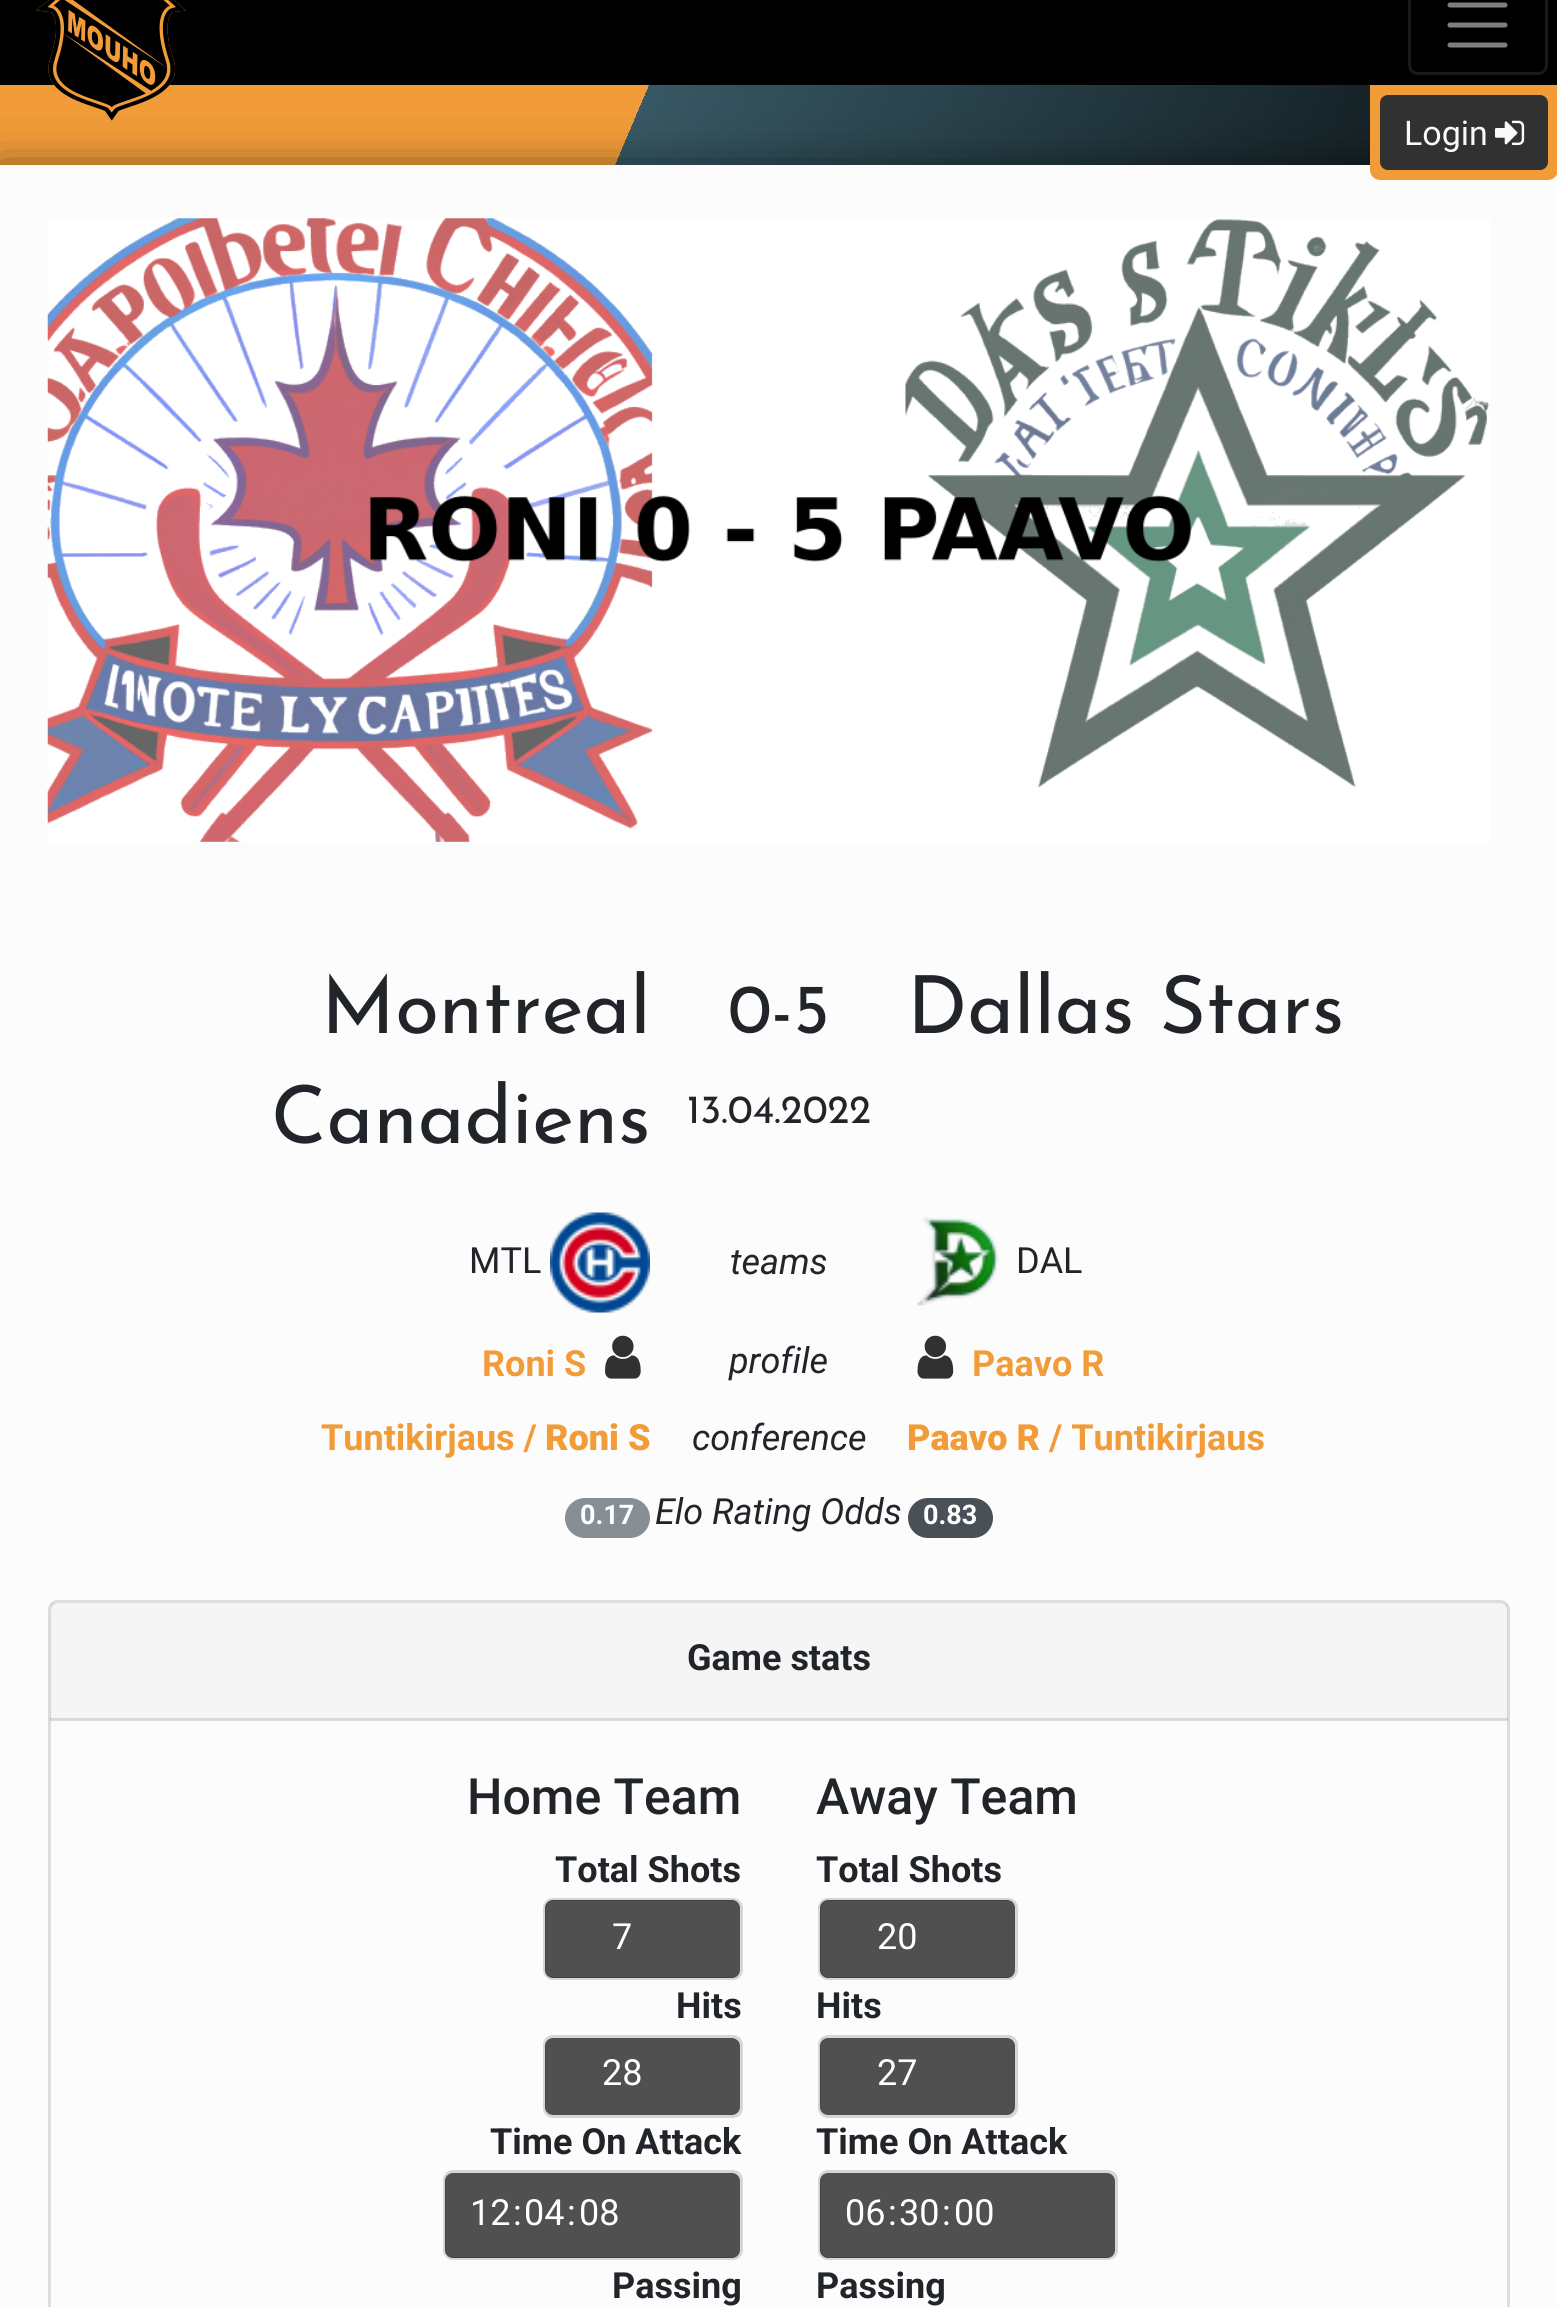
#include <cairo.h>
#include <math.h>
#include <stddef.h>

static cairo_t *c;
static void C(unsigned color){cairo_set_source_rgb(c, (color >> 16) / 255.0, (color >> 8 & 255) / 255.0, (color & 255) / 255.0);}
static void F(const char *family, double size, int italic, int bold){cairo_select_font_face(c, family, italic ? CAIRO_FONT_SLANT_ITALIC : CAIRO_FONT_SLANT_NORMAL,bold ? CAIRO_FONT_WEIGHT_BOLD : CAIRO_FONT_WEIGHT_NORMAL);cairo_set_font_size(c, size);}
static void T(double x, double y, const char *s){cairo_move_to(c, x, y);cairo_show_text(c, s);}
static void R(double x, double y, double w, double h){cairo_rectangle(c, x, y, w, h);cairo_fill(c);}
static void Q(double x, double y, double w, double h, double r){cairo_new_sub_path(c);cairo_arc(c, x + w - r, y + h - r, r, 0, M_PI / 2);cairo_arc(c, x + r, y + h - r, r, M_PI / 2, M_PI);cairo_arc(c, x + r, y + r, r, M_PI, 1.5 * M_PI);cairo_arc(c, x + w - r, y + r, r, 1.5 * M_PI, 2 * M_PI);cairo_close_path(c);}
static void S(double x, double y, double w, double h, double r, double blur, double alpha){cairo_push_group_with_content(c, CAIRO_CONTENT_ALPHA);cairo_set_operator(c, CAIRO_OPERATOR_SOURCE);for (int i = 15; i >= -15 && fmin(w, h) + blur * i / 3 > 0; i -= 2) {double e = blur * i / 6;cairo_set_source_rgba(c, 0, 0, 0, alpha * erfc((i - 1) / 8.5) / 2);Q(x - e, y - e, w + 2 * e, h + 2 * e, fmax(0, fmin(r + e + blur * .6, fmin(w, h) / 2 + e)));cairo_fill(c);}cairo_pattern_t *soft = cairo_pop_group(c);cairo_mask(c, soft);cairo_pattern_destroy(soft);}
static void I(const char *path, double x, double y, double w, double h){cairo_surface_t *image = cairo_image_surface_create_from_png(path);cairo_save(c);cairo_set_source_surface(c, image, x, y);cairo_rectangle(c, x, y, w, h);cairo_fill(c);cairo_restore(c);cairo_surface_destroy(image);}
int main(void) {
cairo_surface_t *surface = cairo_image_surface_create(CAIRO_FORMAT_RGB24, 1557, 2307);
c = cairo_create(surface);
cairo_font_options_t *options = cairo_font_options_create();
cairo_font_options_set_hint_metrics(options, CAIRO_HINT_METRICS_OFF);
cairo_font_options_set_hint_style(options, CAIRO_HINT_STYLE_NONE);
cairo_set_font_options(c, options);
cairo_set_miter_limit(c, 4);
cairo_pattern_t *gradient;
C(0xffffff);
cairo_paint(c);
C(0x000000);
R(0,0,1557,85);
gradient = cairo_pattern_create_linear(-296,698,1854,1610);
cairo_pattern_add_color_stop_rgba(gradient,.27,0.945,0.608,0.224,1);
cairo_pattern_add_color_stop_rgba(gradient,.27,0.216,0.345,0.392,1);
cairo_pattern_add_color_stop_rgba(gradient,.75,0,0,0,1);
cairo_pattern_add_color_stop_rgba(gradient,.75,0.945,0.608,0.224,1);
cairo_set_source(c,gradient);
cairo_pattern_destroy(gradient);
R(0,85,1370,80);
C(0x000000);
S(0,178,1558,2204,0,25,.8);
I("1.png",36,0,150,121);
Q(1409.5,-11.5,137,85,8.5);
C(0x191919);
cairo_set_line_width(c,3);
cairo_stroke(c);
cairo_new_path(c);
cairo_move_to(c,1450,5);
cairo_line_to(c,1505,5);
cairo_move_to(c,1450,25);
cairo_line_to(c,1505,25);
cairo_move_to(c,1450,45);
cairo_line_to(c,1505,45);
C(0x7e7e7e);
cairo_set_line_width(c,5);
cairo_set_line_cap(c,CAIRO_LINE_CAP_ROUND);
cairo_stroke(c);
C(0xfcfcfc);
R(0,165,1557,2142);
C(0xf29c39);
cairo_new_path(c);
cairo_move_to(c,1370,85);
cairo_line_to(c,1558,85);
cairo_line_to(c,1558,170);
cairo_curve_to(c,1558,175.5,1553.5,180,1548,180);
cairo_line_to(c,1380,180);
cairo_curve_to(c,1374.5,180,1370,175.5,1370,170);
cairo_close_path(c);
cairo_fill(c);
C(0x313131);
Q(1381.5,96.5,165,72,6.5);
cairo_fill_preserve(c);
cairo_set_line_width(c,3);
cairo_set_line_cap(c,CAIRO_LINE_CAP_BUTT);
cairo_stroke(c);
F("Roboto",34,0,0);
C(0xf8f9fa);
T(1404,145,"Login");
I("2.png",1495,120,30,25);
I("3.png",47,218,1443,624);
F("Josefin Sans Thin",80,0,0);
C(0x212529);
T(321,1033,"Montreal");
T(271,1143,"Canadiens");
F("Josefin Sans Thin",70,0,0);
T(728,1033,"0-5");
F("Josefin Sans Thin",40,0,0);
T(687,1123,"13.04.2022");
F("Josefin Sans Thin",80,0,0);
T(907,1033,"Dallas Stars");
F("Roboto",36,0,0);
T(469,1273,"MTL");
I("4.png",550,1212,100,101);
F("Roboto",36,1,0);
T(730,1274,"teams");
I("5.png",917,1217,82,90);
F("Roboto",36,0,0);
T(1016,1273,"DAL");
F("Roboto",36,0,1);
C(0xf29c39);
T(482,1376,"Roni S");
I("6.png",605,1335,36,44);
F("Roboto",36,1,0);
C(0x212529);
T(729,1373,"profile");
I("7.png",917,1335,37,44);
F("Roboto",36,0,1);
C(0xf29c39);
T(972,1376,"Paavo R");
T(321,1450,"Tuntikirjaus /");
F("Roboto Black",36,0,0);
T(545,1450,"Roni S");
F("Roboto",36,1,0);
C(0x212529);
T(692,1450,"conference");
F("Roboto Black",36,0,0);
C(0xf29c39);
T(907,1450,"Paavo R");
F("Roboto",36,0,1);
T(1049,1450,"/ Tuntikirjaus");
C(0x868e96);
Q(565,1498,85,40,20);
cairo_fill(c);
F("Roboto",27,0,1);
C(0xffffff);
T(580,1524,"0.17");
F("Roboto",36,1,0);
C(0x212529);
T(655,1524,"Elo Rating Odds");
C(0x495057);
Q(908,1498,85,40,20);
cairo_fill(c);
F("Roboto",27,0,1);
C(0xffffff);
T(923,1524,"0.83");
Q(49.5,1601.5,1459,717,8.5);
C(0xdddddd);
cairo_stroke(c);
cairo_set_source_rgba(c,0,0,0,0.03);
R(50,1603,1458,117);
cairo_set_source_rgba(c,0,0,0,0.12);
R(50,1718,1458,3);
F("Roboto",36,0,1);
C(0x212529);
T(687,1670,"Game stats");
F("Roboto Medium",50,0,0);
T(467,1814,"Home Team");
T(816,1814,"Away Team");
F("Roboto",36,0,1);
T(555,1882,"Total Shots");
C(0x505050);
Q(545,1900,195,78,8);
cairo_fill(c);
Q(544.5,1899.5,197,79,8.5);
cairo_set_source_rgba(c,0,0,0,0.15);
cairo_stroke(c);
F("Roboto",36,0,0);
C(0xffffff);
T(612,1949,"7");
F("Roboto",36,0,1);
C(0x212529);
T(816,1882,"Total Shots");
C(0x505050);
Q(820,1900,195,78,8);
cairo_fill(c);
Q(819.5,1899.5,197,79,8.5);
cairo_set_source_rgba(c,0,0,0,0.15);
cairo_stroke(c);
F("Roboto",36,0,0);
C(0xffffff);
T(877,1949,"20");
F("Roboto",36,0,1);
C(0x212529);
T(676,2018,"Hits");
C(0x505050);
Q(545,2038,195,77,8);
cairo_fill(c);
Q(544.5,2036.5,197,80,8.5);
cairo_set_source_rgba(c,0,0,0,0.15);
cairo_stroke(c);
F("Roboto",36,0,0);
C(0xffffff);
T(602,2085,"28");
F("Roboto",36,0,1);
C(0x212529);
T(816,2018,"Hits");
C(0x505050);
Q(820,2038,195,77,8);
cairo_fill(c);
Q(819.5,2036.5,197,80,8.5);
cairo_set_source_rgba(c,0,0,0,0.15);
cairo_stroke(c);
F("Roboto",36,0,0);
C(0xffffff);
T(877,2085,"27");
F("Roboto",36,0,1);
C(0x212529);
T(490,2154,"Time On Attack");
C(0x505050);
Q(445,2173,295,85,8);
cairo_fill(c);
Q(444.5,2171.5,297,87,8.5);
cairo_set_source_rgba(c,0,0,0,0.15);
cairo_stroke(c);
F("Roboto",36,0,0);
C(0xffffff);
T(470,2225,"12");
T(513,2225,":");
T(524,2225,"04");
T(567,2225,":");
T(579,2225,"08");
F("Roboto",36,0,1);
C(0x212529);
T(816,2154,"Time On Attack");
C(0x505050);
Q(820,2173,295,85,8);
cairo_fill(c);
Q(819.5,2171.5,297,87,8.5);
cairo_set_source_rgba(c,0,0,0,0.15);
cairo_stroke(c);
F("Roboto",36,0,0);
C(0xffffff);
T(845,2225,"06");
T(888,2225,":");
T(899,2225,"30");
T(942,2225,":");
T(954,2225,"00");
F("Roboto",36,0,1);
C(0x212529);
T(612,2298,"Passing");
T(816,2298,"Passing");
cairo_surface_write_to_png(surface, "o.png");
cairo_font_options_destroy(options);
cairo_destroy(c);
cairo_surface_destroy(surface);
return 0;
}
